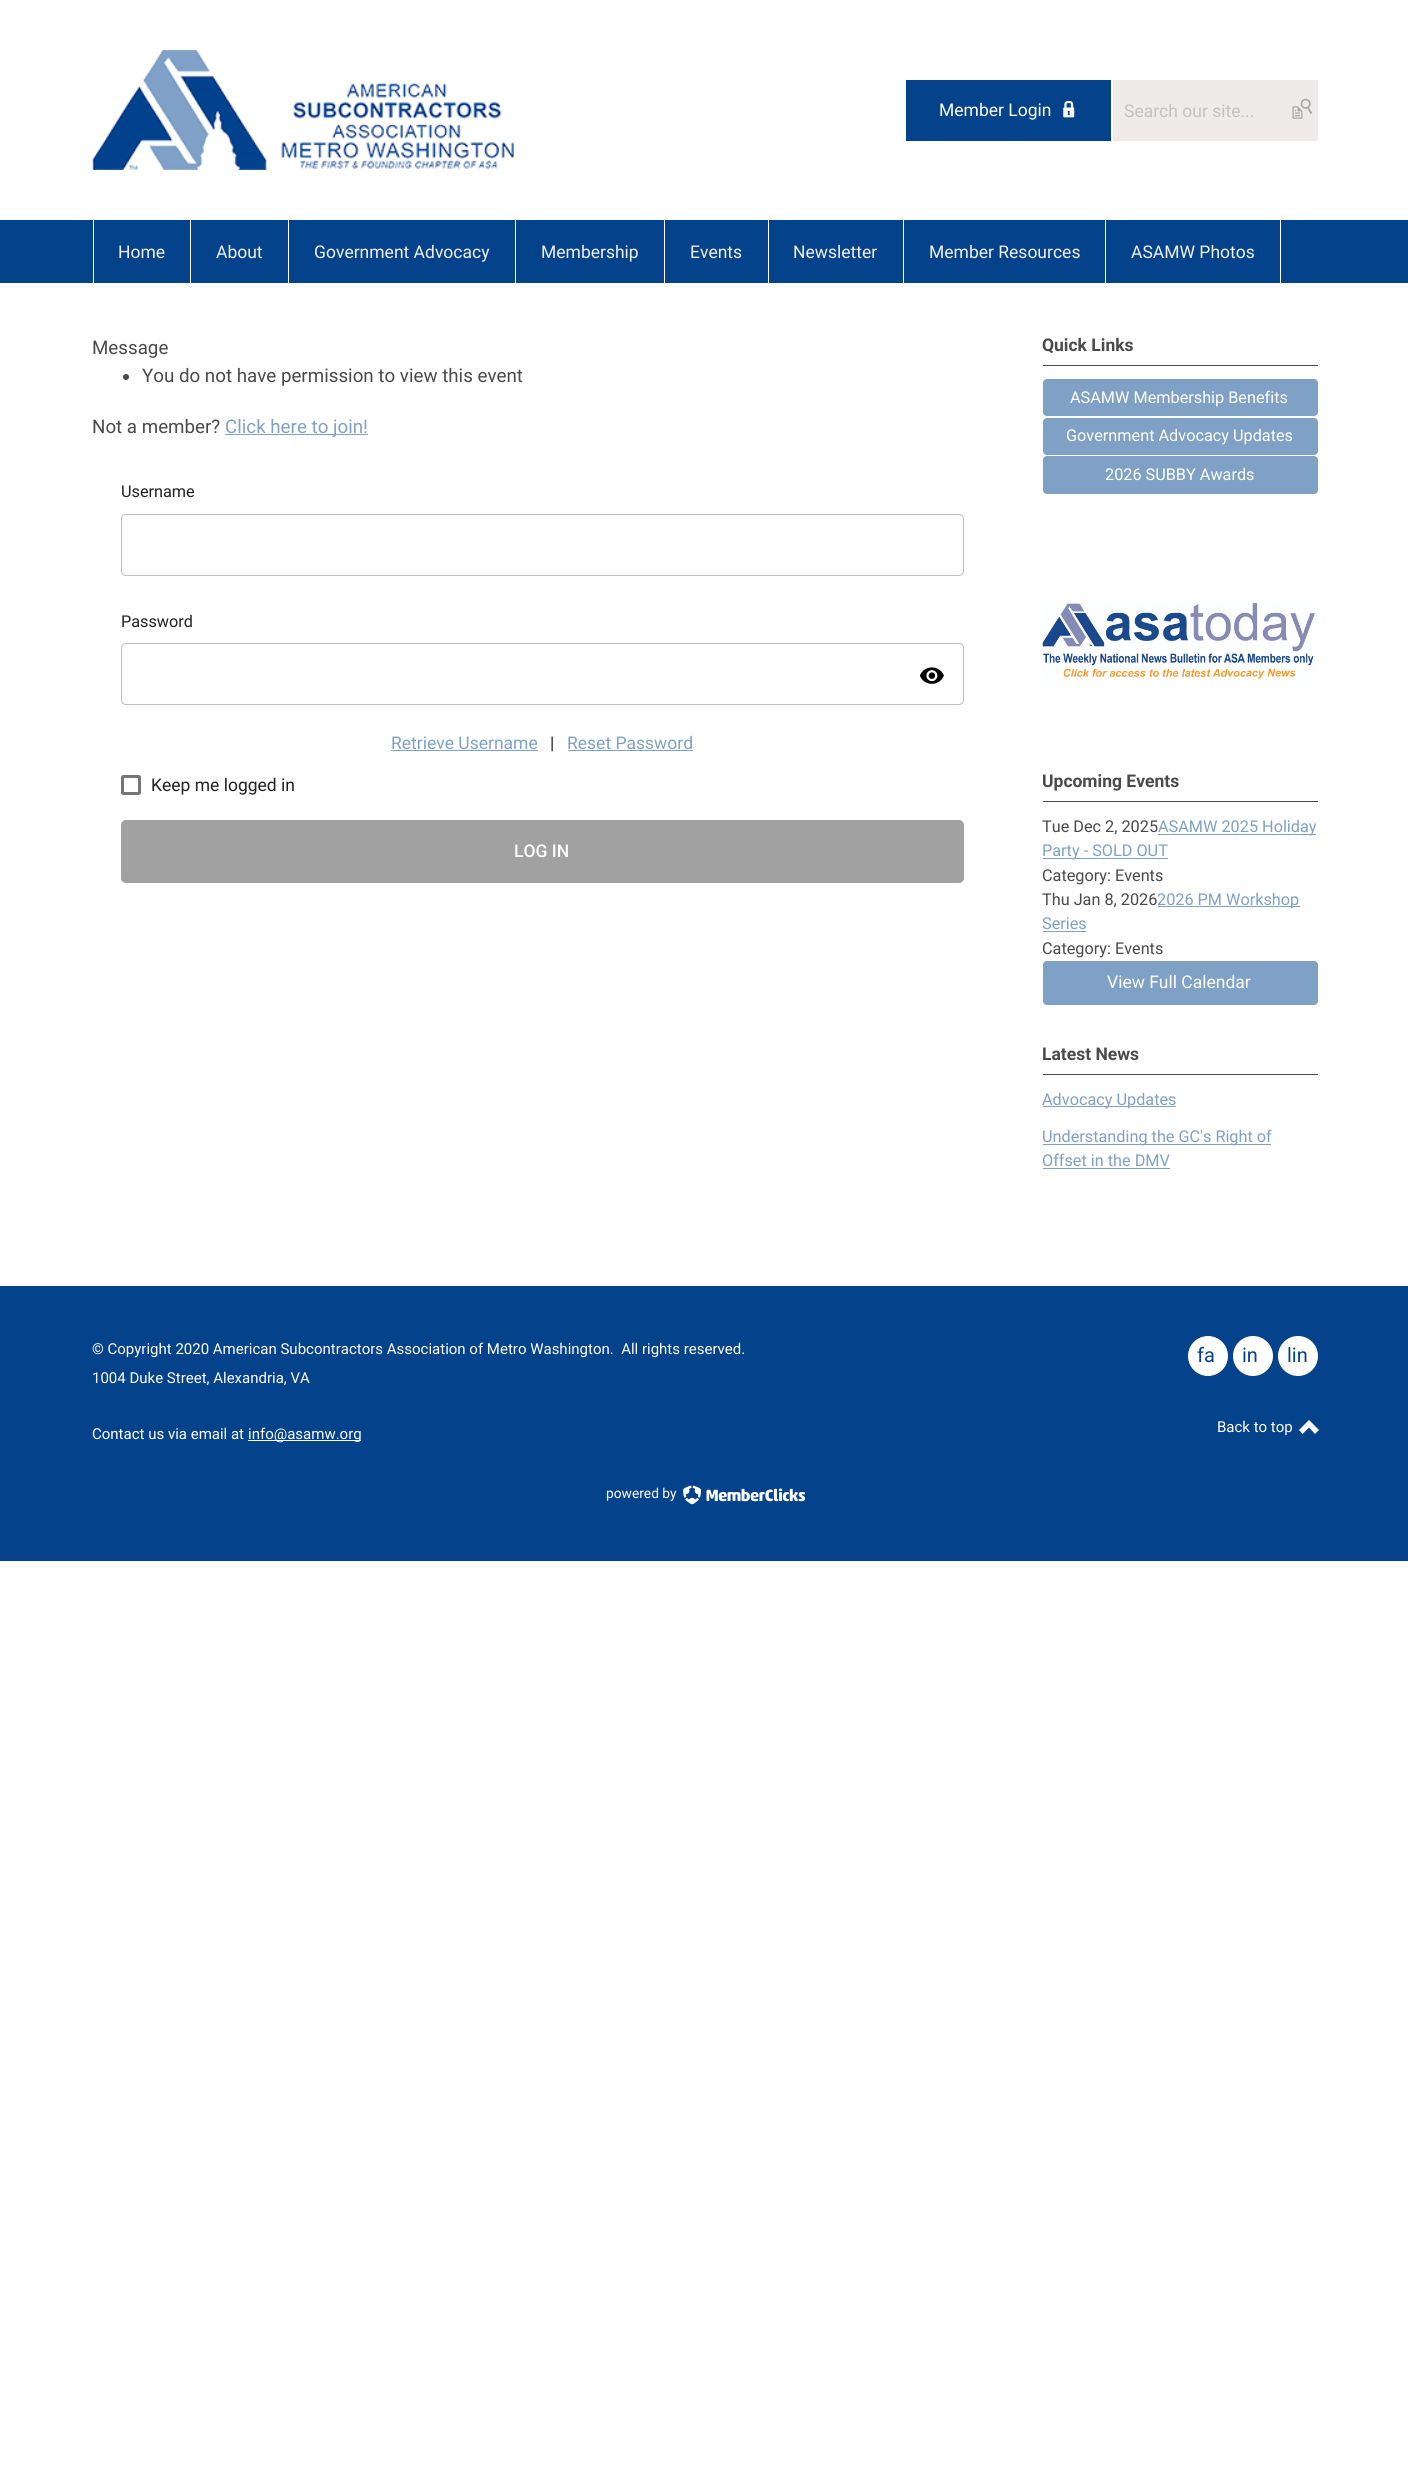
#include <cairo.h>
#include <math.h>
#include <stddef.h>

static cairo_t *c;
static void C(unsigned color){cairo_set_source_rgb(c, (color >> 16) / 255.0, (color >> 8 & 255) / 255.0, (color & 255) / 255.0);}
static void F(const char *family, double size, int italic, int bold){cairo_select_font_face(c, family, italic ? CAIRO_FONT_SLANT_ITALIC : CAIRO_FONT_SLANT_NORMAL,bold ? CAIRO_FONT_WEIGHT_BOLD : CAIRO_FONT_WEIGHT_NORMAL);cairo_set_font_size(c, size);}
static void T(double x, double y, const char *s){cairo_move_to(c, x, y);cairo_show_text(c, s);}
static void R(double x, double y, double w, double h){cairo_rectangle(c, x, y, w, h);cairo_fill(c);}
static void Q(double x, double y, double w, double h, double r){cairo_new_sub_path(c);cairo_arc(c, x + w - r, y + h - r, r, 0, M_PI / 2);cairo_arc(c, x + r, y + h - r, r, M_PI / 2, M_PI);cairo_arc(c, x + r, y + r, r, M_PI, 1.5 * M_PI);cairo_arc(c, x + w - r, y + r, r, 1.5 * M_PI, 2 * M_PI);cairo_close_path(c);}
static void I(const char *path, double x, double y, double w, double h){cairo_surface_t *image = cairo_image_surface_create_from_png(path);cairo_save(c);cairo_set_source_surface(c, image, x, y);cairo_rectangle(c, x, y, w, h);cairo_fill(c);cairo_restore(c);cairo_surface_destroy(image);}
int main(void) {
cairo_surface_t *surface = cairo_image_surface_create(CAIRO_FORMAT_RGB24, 1408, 2471);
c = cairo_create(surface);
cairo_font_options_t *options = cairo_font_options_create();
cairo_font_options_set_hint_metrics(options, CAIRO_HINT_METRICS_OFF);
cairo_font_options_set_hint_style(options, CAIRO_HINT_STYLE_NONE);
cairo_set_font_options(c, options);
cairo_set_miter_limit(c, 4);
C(0xffffff);
cairo_paint(c);
I("1.png",92,50,422,120);
C(0x05428c);
R(906,80,205,61);
F("Roboto",17.5,0,0);
C(0xffffff);
T(939,116,"Member Login");
I("2.png",1063,100,12,18);
C(0xefebeb);
R(1113,80,205,61);
C(0xc4c1c1);
T(1124,117,"Search our site...");
I("3.png",1292,98,21,21);
C(0x05428c);
R(0,220,1408,63);
C(0xffffff);
R(93,220,1,63);
R(190,220,1,63);
C(0xf0f0f0);
T(118,258,"Home");
C(0xffffff);
R(288,220,1,63);
C(0xf0f0f0);
T(216,258,"About");
C(0xffffff);
R(515,220,1,63);
C(0xf0f0f0);
T(314,258,"Government Advocacy");
C(0xffffff);
R(664,220,1,63);
C(0xf0f0f0);
T(541,258,"Membership");
C(0xffffff);
R(768,220,1,63);
C(0xf0f0f0);
T(690,258,"Events");
C(0xffffff);
R(903,220,1,63);
C(0xf0f0f0);
T(793,258,"Newsletter");
C(0xffffff);
R(1105,220,1,63);
C(0xf0f0f0);
T(929,258,"Member Resources");
C(0xffffff);
R(1280,220,1,63);
C(0xf0f0f0);
T(1131,258,"ASAMW Photos");
F("Roboto",18.75,0,0);
C(0x4a4a4a);
T(92,354,"Message");
cairo_new_path(c);
cairo_arc(c,126,377,3,0,2 * M_PI);
cairo_fill(c);
T(142,382,"You do not have permission to view this event");
T(92,433,"Not a member?");
C(0x80a1c6);
R(225,434,143,1);
T(225,433,"Click here to join!");
F("Roboto",16.25,0,0);
C(0x212121);
T(121,497,"Username");
Q(121.5,514.5,842,61,4.5);
C(0xbfbfbf);
cairo_set_line_width(c,1);
cairo_stroke(c);
C(0x212121);
T(121,627,"Password");
Q(121.5,643.5,842,61,4.5);
C(0xbfbfbf);
cairo_stroke(c);
I("4.png",919,667,25,17);
F("Roboto",17.5,0,0);
C(0x80a1c6);
T(391,749,"Retrieve Username");
R(391,750,147,1);
C(0x212121);
T(550,749,"|");
C(0x80a1c6);
T(567,749,"Reset Password");
R(568,750,125,1);
Q(122.5,776.5,17,17,1);
C(0x757575);
cairo_set_line_width(c,3);
cairo_stroke(c);
C(0x212121);
T(151,791,"Keep me logged in");
C(0xa1a1a1);
Q(121,820,843,63,5);
cairo_fill(c);
F("Roboto Medium",17.5,0,0);
C(0xffffff);
T(514,857,"LOG IN");
C(0x4a4a4a);
R(1043,365,275,1);
F("Roboto",17.5,0,1);
T(1042,351,"Quick Links");
C(0x80a1c6);
Q(1043,379,275,37,4);
cairo_fill(c);
F("Roboto",16.25,0,0);
C(0xffffff);
T(1070,403,"ASAMW Membership Benefits");
C(0x80a1c6);
Q(1043,418,275,37,4);
cairo_fill(c);
C(0xffffff);
T(1066,441,"Government Advocacy Updates");
C(0x80a1c6);
Q(1043,456,275,38,4);
cairo_fill(c);
C(0xffffff);
T(1105,480,"2026 SUBBY Awards");
I("5.png",1042,603,273,77);
C(0x4a4a4a);
R(1043,801,275,1);
F("Roboto",17.5,0,1);
T(1042,787,"Upcoming Events");
F("Roboto",16.25,0,0);
T(1042,832,"Tue Dec 2, 2025");
C(0x80a1c6);
R(1158,834,158,1);
T(1158,832,"ASAMW 2025 Holiday");
R(1043,858,125,1);
T(1042,856,"Party - SOLD OUT");
C(0x4a4a4a);
T(1042,881,"Category: Events");
T(1042,905,"Thu Jan 8, 2026");
C(0x80a1c6);
R(1158,906,142,1);
T(1157,905,"2026 PM Workshop");
T(1042,929,"Series");
R(1043,931,43,1);
C(0x4a4a4a);
T(1042,954,"Category: Events");
C(0x80a1c6);
Q(1043,961,275,44,4);
cairo_fill(c);
F("Roboto",17.5,0,0);
C(0xffffff);
T(1107,988,"View Full Calendar");
C(0x4a4a4a);
R(1043,1074,275,1);
F("Roboto",17.5,0,1);
T(1042,1060,"Latest News");
C(0x80a1c6);
R(1043,1106,133,1);
F("Roboto",16.25,0,0);
T(1042,1105,"Advocacy Updates");
R(1043,1144,228,1);
T(1042,1142,"Understanding the GC's Right of");
T(1042,1166,"Offset in the DMV");
R(1043,1168,127,1);
C(0x05428c);
R(0,1286,1408,275);
F("Roboto",15,0,0);
C(0xffffff);
T(92,1354,"© Copyright 2020 American Subcontractors Association of Metro Washington.  All rights reserved.");
T(92,1383,"1004 Duke Street, Alexandria, VA");
T(92,1439,"Contact us via email at");
R(248,1440,113,1);
T(248,1439,"info@asamw.org");
cairo_new_path(c);
cairo_arc(c,1208,1356,20,0,2 * M_PI);
cairo_fill(c);
F("Roboto",20,0,0);
C(0x05428c);
T(1197,1362,"fa");
C(0xffffff);
cairo_new_path(c);
cairo_arc(c,1253,1356,20,0,2 * M_PI);
cairo_fill(c);
C(0x05428c);
T(1242,1362,"in");
C(0xffffff);
cairo_new_path(c);
cairo_arc(c,1298,1356,20,0,2 * M_PI);
cairo_fill(c);
C(0x05428c);
T(1287,1362,"lin");
F("Roboto",15,0,0);
C(0xffffff);
T(1217,1432,"Back to top");
cairo_new_path(c);
cairo_move_to(c,1299,1430);
cairo_line_to(c,1302.5,1434);
cairo_line_to(c,1309,1427.5);
cairo_line_to(c,1315,1434);
cairo_line_to(c,1319,1430);
cairo_line_to(c,1309,1420);
cairo_close_path(c);
cairo_fill(c);
F("Roboto",13.75,0,0);
T(606,1498,"powered by");
I("6.png",683,1485,18,20);
I("7.png",706,1488,99,14);
cairo_surface_write_to_png(surface, "o.png");
cairo_font_options_destroy(options);
cairo_destroy(c);
cairo_surface_destroy(surface);
return 0;
}
